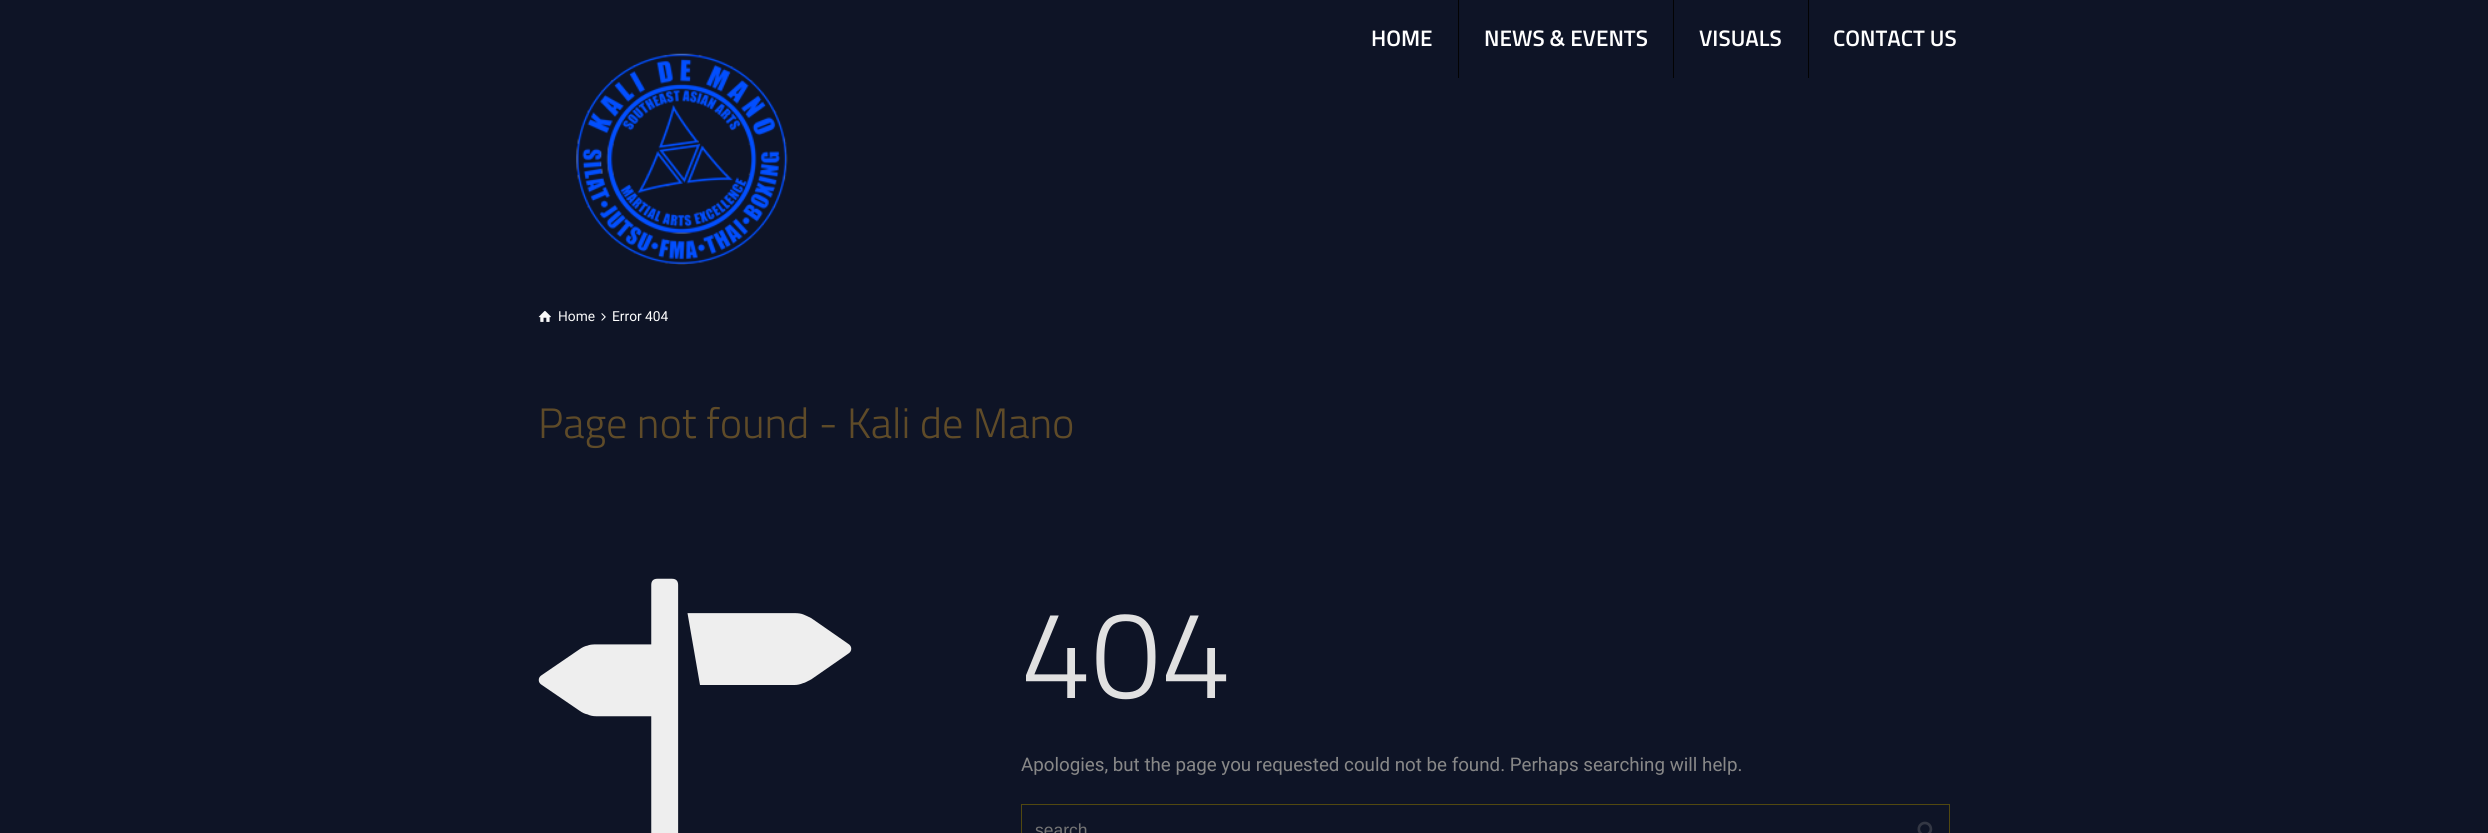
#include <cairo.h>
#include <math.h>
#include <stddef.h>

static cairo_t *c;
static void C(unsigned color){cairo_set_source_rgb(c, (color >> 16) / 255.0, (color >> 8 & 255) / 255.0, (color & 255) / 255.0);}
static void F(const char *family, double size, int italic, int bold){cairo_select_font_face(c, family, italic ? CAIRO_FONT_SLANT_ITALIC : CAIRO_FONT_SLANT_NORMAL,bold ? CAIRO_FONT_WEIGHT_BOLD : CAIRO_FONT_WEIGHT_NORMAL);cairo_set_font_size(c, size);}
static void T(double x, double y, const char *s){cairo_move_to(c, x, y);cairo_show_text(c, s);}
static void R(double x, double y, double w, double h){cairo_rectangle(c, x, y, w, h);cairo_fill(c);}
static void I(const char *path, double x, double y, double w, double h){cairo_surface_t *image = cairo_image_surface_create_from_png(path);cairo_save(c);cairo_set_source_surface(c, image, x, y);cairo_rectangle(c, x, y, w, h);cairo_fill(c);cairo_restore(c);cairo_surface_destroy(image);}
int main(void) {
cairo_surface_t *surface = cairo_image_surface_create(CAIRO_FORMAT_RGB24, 2488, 833);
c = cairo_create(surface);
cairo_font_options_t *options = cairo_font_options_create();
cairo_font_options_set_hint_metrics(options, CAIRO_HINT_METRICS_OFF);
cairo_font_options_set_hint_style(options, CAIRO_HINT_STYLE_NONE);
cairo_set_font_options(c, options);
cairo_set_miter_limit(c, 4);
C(0x0e1426);
cairo_paint(c);
C(0x030303);
R(1458,0,1,78);
F("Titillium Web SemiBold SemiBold",22.5,0,0);
C(0xffffff);
T(1371,46,"HOME");
C(0x030303);
R(1673,0,1,78);
C(0xffffff);
T(1484,46,"NEWS & EVENTS");
C(0x030303);
R(1808,0,1,78);
C(0xffffff);
T(1699,46,"VISUALS");
T(1833,46,"CONTACT US");
I("1.png",576,53,212,212);
I("2.png",538,310,13,12);
F("Roboto",13.75,0,0);
C(0xf9f9f9);
T(558,321,"Home");
I("3.png",601,313,5,8);
C(0xffffff);
T(612,321,"Error 404");
F("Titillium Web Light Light",42.5,0,0);
C(0x5f4b28);
T(538,438,"Page not found - Kali de Mano");
I("4.png",538,578,314,255);
F("Titillium Web Light Light",125,0,0);
C(0xe1e1e1);
T(1021,698,"404");
F("Roboto",18.75,0,0);
C(0x888888);
T(1021,771,"Apologies, but the page you requested could not be found. Perhaps searching will help.");
cairo_rectangle(c,1021.5,804.5,928,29);
C(0x514810);
cairo_set_line_width(c,1);
cairo_stroke(c);
F("Liberation Sans",17.5,0,0);
C(0x757575);
T(1035,836,"search");
I("5.png",1917,821,16,12);
cairo_surface_write_to_png(surface, "o.png");
cairo_font_options_destroy(options);
cairo_destroy(c);
cairo_surface_destroy(surface);
return 0;
}
